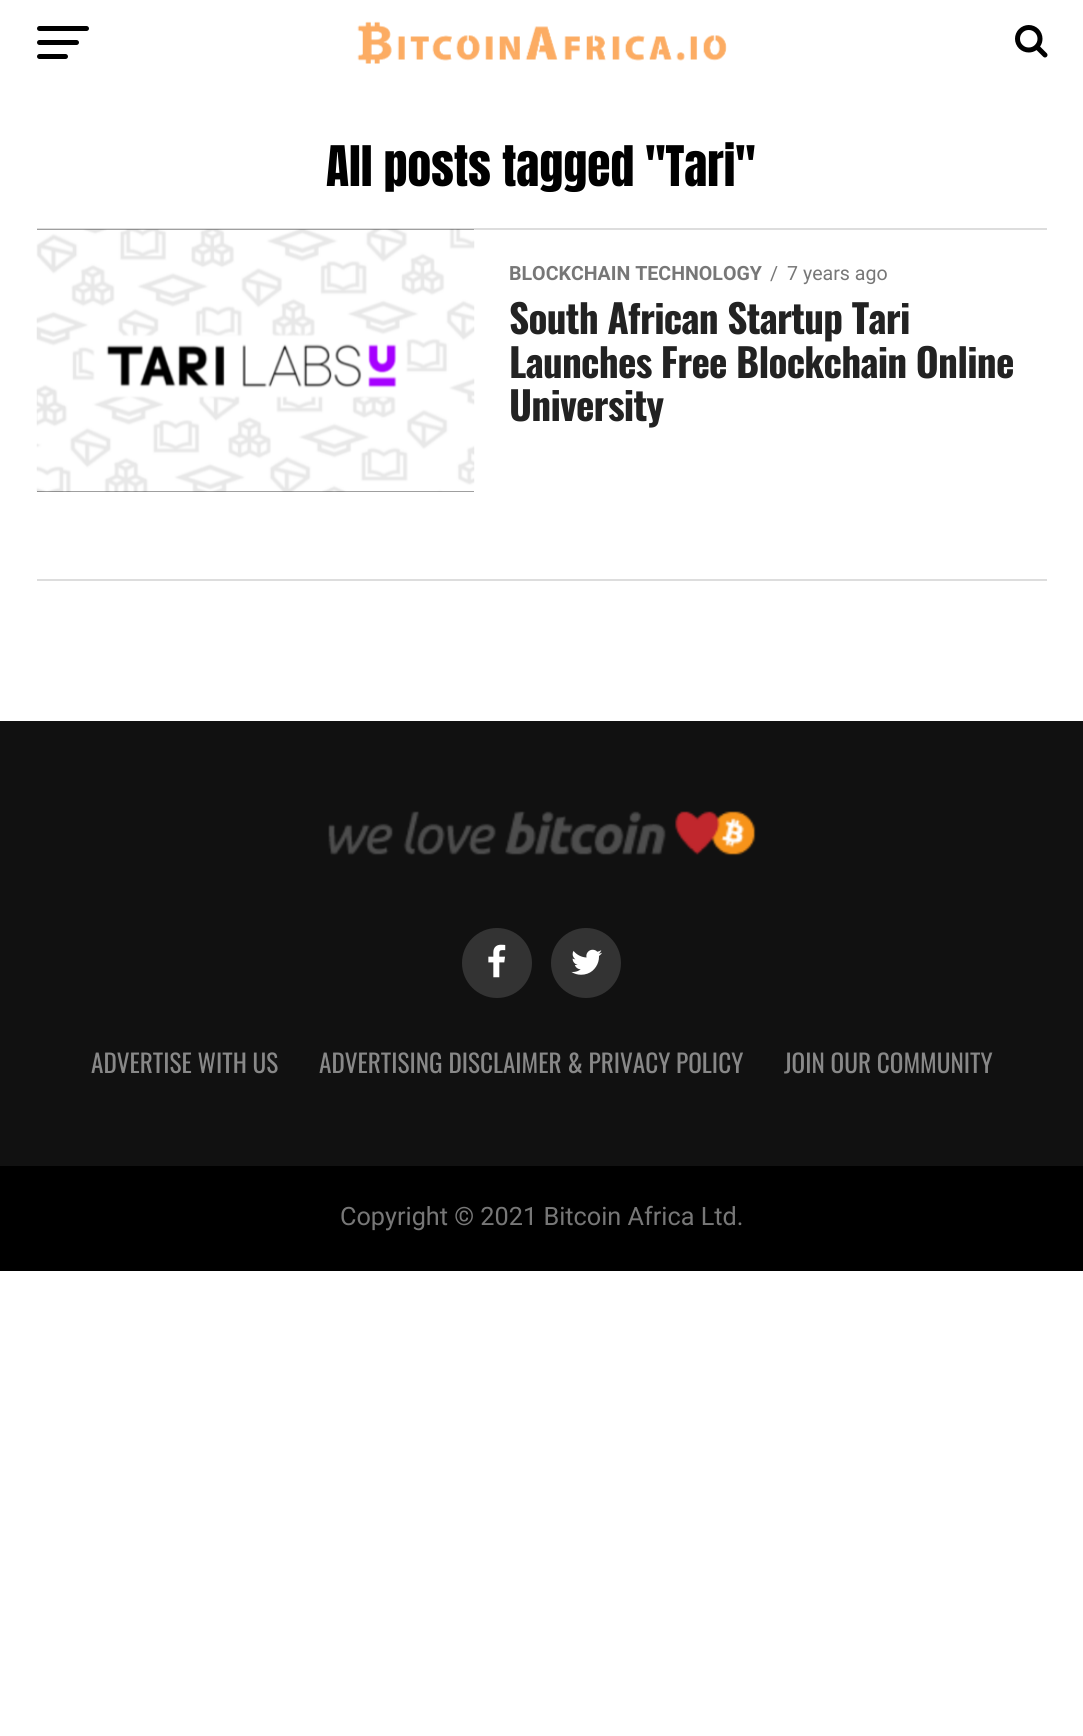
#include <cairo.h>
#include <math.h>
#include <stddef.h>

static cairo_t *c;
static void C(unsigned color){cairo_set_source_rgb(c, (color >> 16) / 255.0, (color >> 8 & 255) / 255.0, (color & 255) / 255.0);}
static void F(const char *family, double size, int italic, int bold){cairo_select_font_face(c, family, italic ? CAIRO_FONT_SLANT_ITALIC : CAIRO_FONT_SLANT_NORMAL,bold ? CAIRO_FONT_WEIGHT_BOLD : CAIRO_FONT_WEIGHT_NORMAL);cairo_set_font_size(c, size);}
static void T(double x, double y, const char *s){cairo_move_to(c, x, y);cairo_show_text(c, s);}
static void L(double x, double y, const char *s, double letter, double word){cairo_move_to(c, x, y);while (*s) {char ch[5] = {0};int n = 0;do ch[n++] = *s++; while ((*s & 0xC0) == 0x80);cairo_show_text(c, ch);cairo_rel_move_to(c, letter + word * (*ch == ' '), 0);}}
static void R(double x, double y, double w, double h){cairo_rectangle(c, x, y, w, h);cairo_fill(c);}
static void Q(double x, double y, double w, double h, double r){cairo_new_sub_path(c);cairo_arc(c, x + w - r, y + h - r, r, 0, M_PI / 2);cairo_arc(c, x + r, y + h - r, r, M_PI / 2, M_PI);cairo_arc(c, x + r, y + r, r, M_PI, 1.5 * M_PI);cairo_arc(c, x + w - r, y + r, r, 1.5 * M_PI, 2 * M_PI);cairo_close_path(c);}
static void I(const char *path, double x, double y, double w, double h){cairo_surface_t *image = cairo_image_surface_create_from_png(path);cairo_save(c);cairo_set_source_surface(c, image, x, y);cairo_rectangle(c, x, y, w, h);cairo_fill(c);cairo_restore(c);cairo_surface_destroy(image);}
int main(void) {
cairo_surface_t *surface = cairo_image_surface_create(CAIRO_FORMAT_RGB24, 1083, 1736);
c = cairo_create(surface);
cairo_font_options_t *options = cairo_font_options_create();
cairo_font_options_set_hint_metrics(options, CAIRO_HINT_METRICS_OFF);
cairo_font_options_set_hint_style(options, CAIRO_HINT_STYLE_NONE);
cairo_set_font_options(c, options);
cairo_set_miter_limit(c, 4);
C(0xffffff);
cairo_paint(c);
C(0x000000);
Q(37,26,52,5,2.5);
cairo_fill(c);
Q(37,40,42,5,2.5);
cairo_fill(c);
Q(37,54,31,5,2.5);
cairo_fill(c);
I("1.png",357,21,370,43);
I("2.png",1015,25,33,33);
F("Anton",47.5,0,0);
T(326,186,"All posts tagged \"Tari\"");
C(0xdddddd);
R(37,228,1010,2);
C(0x000000);
R(37,229,437,263);
I("3.png",36,229,439,263);
F("Roboto",19.6,0,1);
C(0x777777);
T(509,280,"BLOCKCHAIN TECHNOLOGY");
F("Roboto",19.6,0,0);
T(770,280,"/");
T(787,280,"7 years ago");
F("Oswald",39.25,0,1);
C(0x222222);
L(509,334,"South African Startup Tari",-.75,0);
L(509,378,"Launches Free Blockchain Online",-.75,0);
L(509,421,"University",-.75,0);
C(0xdddddd);
R(37,579,1010,2);
C(0x111111);
R(0,721,1083,445);
I("4.png",328,811,428,45);
C(0x333333);
cairo_arc(c,497,963,35,0,2 * M_PI);
cairo_fill(c);
I("5.png",488,944,18,34);
cairo_arc(c,586,963,35,0,2 * M_PI);
cairo_fill(c);
I("6.png",571,949,31,26);
F("Oswald",25.25,0,0);
C(0x888888);
T(91,1073,"ADVERTISE WITH US");
T(319,1073,"ADVERTISING DISCLAIMER & PRIVACY POLICY");
T(784,1073,"JOIN OUR COMMUNITY");
C(0x000000);
R(0,1166,1083,105);
F("Roboto",25.25,0,0);
C(0x777777);
T(340,1225,"Copyright © 2021 Bitcoin Africa Ltd.");
cairo_surface_write_to_png(surface, "o.png");
cairo_font_options_destroy(options);
cairo_destroy(c);
cairo_surface_destroy(surface);
return 0;
}
